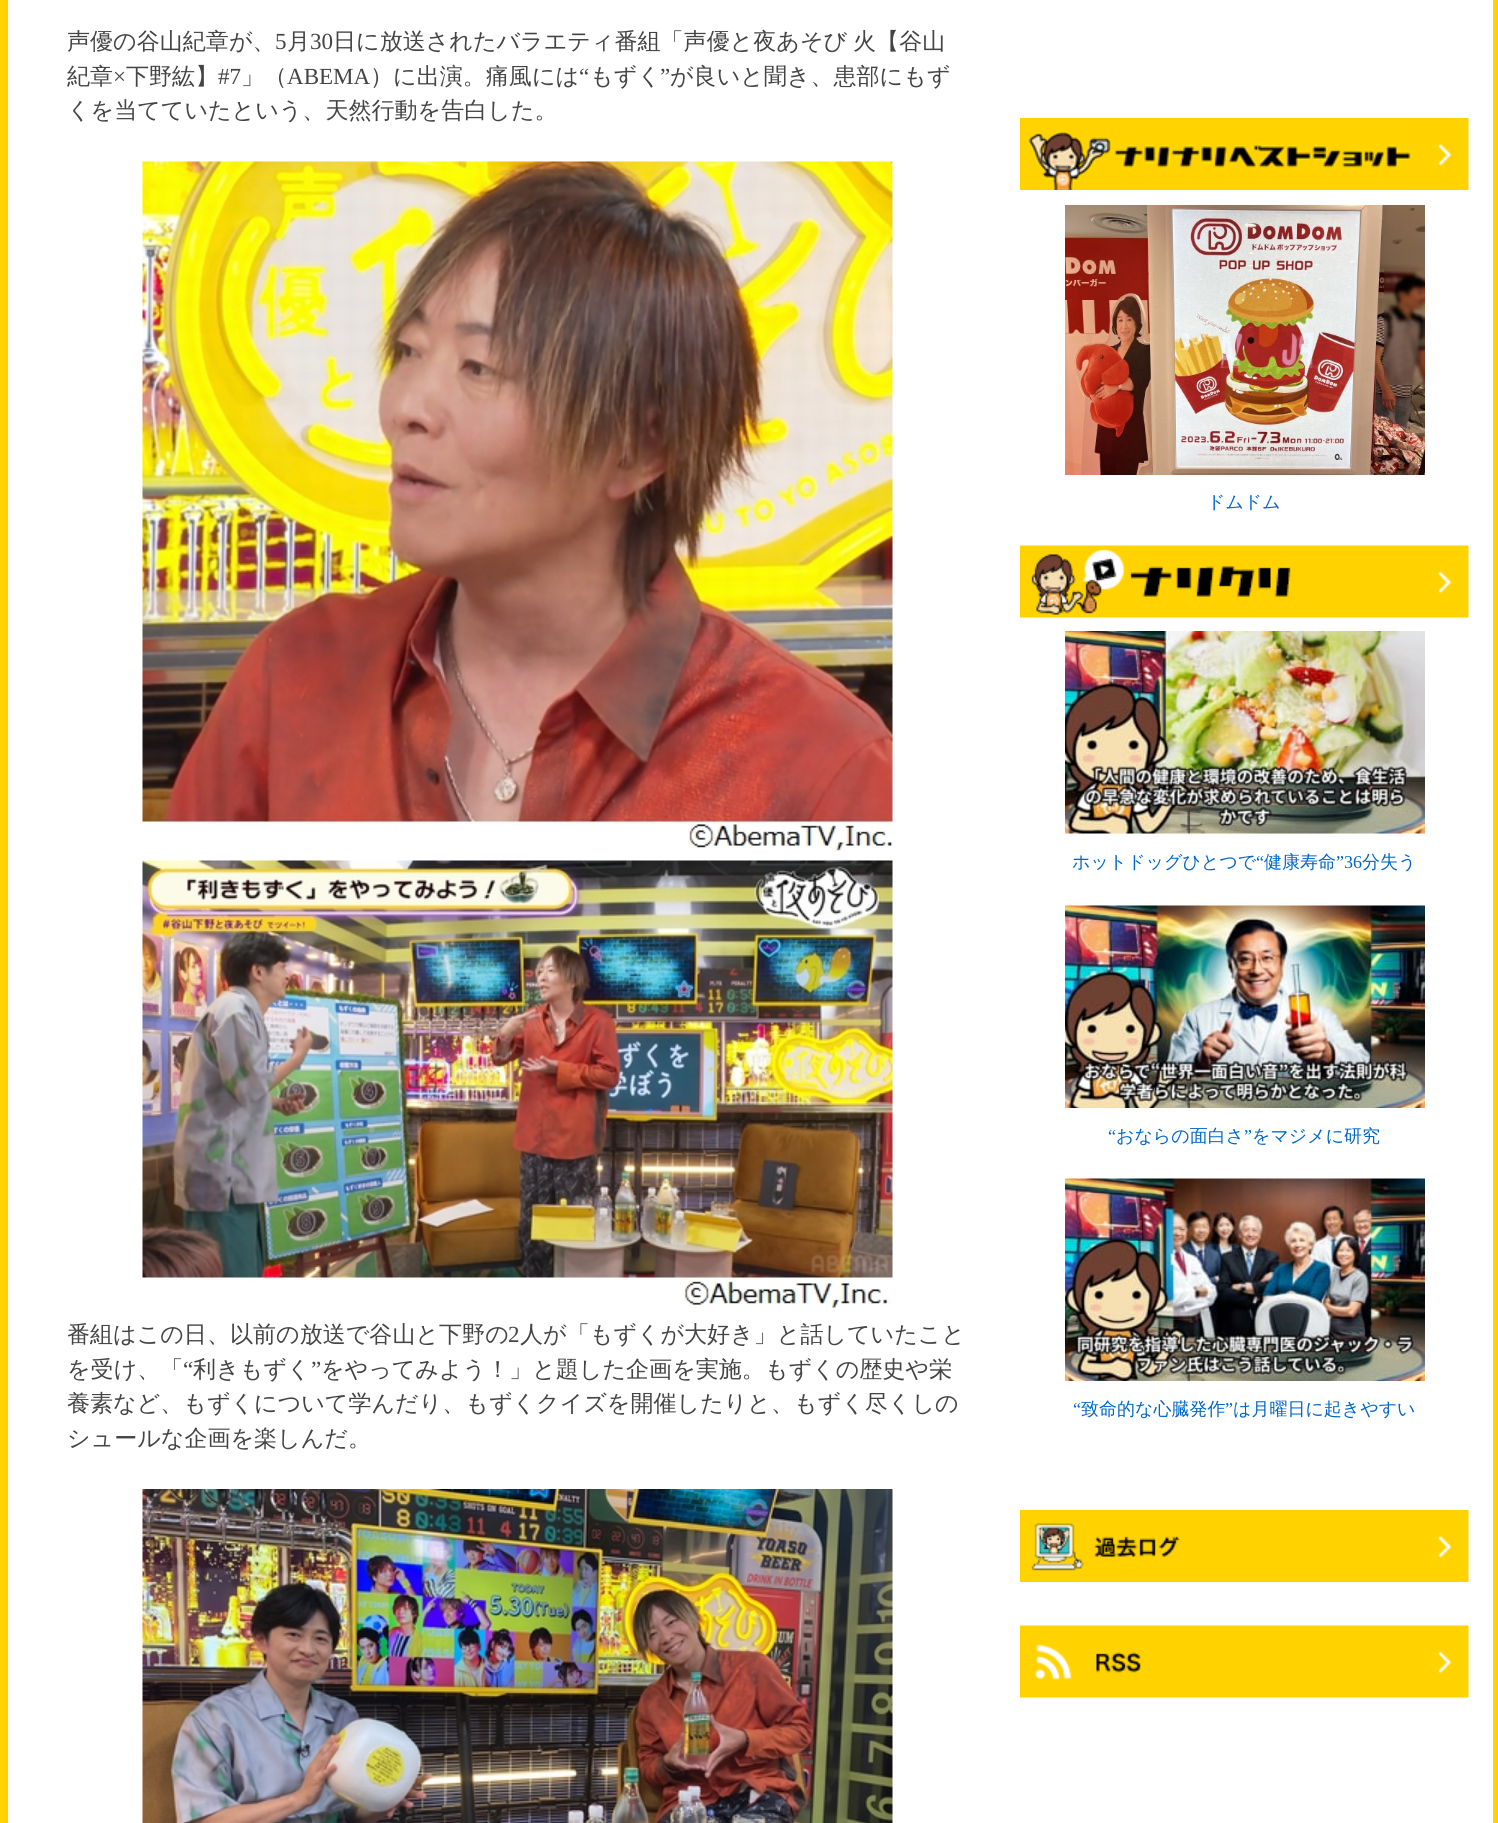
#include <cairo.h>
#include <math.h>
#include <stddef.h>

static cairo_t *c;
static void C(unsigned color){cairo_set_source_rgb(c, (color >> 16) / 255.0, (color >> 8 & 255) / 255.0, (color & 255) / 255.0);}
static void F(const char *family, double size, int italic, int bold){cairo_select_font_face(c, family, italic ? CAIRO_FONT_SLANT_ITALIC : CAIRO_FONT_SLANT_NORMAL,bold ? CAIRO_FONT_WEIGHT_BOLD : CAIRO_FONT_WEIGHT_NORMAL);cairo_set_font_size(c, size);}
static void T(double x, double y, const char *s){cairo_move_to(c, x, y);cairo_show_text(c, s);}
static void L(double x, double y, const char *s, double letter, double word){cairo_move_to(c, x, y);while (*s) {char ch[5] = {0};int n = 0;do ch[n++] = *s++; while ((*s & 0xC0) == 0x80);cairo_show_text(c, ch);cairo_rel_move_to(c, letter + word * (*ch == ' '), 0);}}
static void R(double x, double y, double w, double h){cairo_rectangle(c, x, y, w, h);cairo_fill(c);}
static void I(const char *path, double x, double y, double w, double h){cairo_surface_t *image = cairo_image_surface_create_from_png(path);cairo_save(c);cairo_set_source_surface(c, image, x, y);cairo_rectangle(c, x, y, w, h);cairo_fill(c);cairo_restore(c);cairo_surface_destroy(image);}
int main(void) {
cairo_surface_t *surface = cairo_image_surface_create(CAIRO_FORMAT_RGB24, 1498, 1823);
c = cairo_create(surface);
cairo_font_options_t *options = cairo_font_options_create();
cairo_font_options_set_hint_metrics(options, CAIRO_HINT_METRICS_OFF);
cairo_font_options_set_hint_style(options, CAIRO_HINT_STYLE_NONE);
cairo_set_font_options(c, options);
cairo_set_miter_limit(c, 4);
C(0xffd200);
cairo_paint(c);
C(0xffffff);
R(8,0,1485,1823);
F("WenQuanYi Zen Hei Medium",23.05,0,0);
C(0x444444);
T(67,49,"声優の谷山紀章が、");
F("Liberation Serif",23.05,0,0);
T(275,49,"5");
F("WenQuanYi Zen Hei Medium",23.05,0,0);
T(287,49,"月");
F("Liberation Serif",23.05,0,0);
T(310,49,"30");
F("WenQuanYi Zen Hei Medium",23.05,0,0);
L(333,49,"日に放送されたバラエティ番組「声優と夜あそび 火【谷山",0,-1);
T(67,84,"紀章");
F("Liberation Serif",23.05,0,0);
T(113,84,"×");
F("WenQuanYi Zen Hei Medium",23.05,0,0);
T(126,84,"下野紘】");
F("Liberation Serif",23.05,0,0);
T(218,84,"#7");
F("WenQuanYi Zen Hei Medium",23.05,0,0);
T(241,84,"」（");
F("Liberation Serif",23.05,0,0);
T(287,84,"ABEMA");
F("WenQuanYi Zen Hei Medium",23.05,0,0);
T(370,84,"）に出演。痛風には");
F("Liberation Serif",23.05,0,0);
T(579,84,"“");
F("WenQuanYi Zen Hei Medium",23.05,0,0);
T(590,84,"もずく");
F("Liberation Serif",23.05,0,0);
T(660,84,"”");
F("WenQuanYi Zen Hei Medium",23.05,0,0);
T(670,84,"が良いと聞き、患部にもず");
T(67,118,"くを当てていたという、天然行動を告白した。");
I("1.png",142,161,751,691);
I("2.png",142,860,751,448);
T(67,1342,"番組はこの日、以前の放送で谷山と下野の");
F("Liberation Serif",23.05,0,0);
T(508,1342,"2");
F("WenQuanYi Zen Hei Medium",23.05,0,0);
T(520,1342,"人が「もずくが大好き」と話していたこと");
T(67,1377,"を受け、「");
F("Liberation Serif",23.05,0,0);
T(183,1377,"“");
F("WenQuanYi Zen Hei Medium",23.05,0,0);
T(193,1377,"利きもずく");
F("Liberation Serif",23.05,0,0);
T(311,1377,"”");
F("WenQuanYi Zen Hei Medium",23.05,0,0);
T(321,1377,"をやってみよう！」と題した企画を実施。もずくの歴史や栄");
T(67,1411,"養素など、もずくについて学んだり、もずくクイズを開催したりと、もずく尽くしの");
T(67,1446,"シュールな企画を楽しんだ。");
I("3.png",142,1489,751,334);
I("4.png",1020,118,449,72);
I("5.png",1065,205,360,270);
F("WenQuanYi Zen Hei Medium",18,0,0);
C(0x0066cc);
T(1207,508,"ドムドム");
I("6.png",1020,545,449,73);
I("7.png",1065,631,360,203);
T(1072,868,"ホットドッグひとつで");
F("Liberation Serif",18,0,0);
T(1256,868,"“");
F("WenQuanYi Zen Hei Medium",18,0,0);
T(1264,868,"健康寿命");
F("Liberation Serif",18,0,0);
T(1336,868,"”36");
F("WenQuanYi Zen Hei Medium",18,0,0);
T(1362,868,"分失う");
I("8.png",1065,905,360,203);
F("Liberation Serif",18,0,0);
T(1108,1142,"“");
F("WenQuanYi Zen Hei Medium",18,0,0);
T(1116,1142,"おならの面白さ");
F("Liberation Serif",18,0,0);
T(1244,1142,"”");
F("WenQuanYi Zen Hei Medium",18,0,0);
T(1252,1142,"をマジメに研究");
I("9.png",1065,1178,360,203);
F("Liberation Serif",18,0,0);
T(1073,1415,"“");
F("WenQuanYi Zen Hei Medium",18,0,0);
T(1081,1415,"致命的な心臓発作");
F("Liberation Serif",18,0,0);
T(1225,1415,"”");
F("WenQuanYi Zen Hei Medium",18,0,0);
T(1233,1415,"は月曜日に起きやすい");
I("10.png",1020,1510,449,72);
I("11.png",1020,1625,449,73);
cairo_surface_write_to_png(surface, "o.png");
cairo_font_options_destroy(options);
cairo_destroy(c);
cairo_surface_destroy(surface);
return 0;
}
